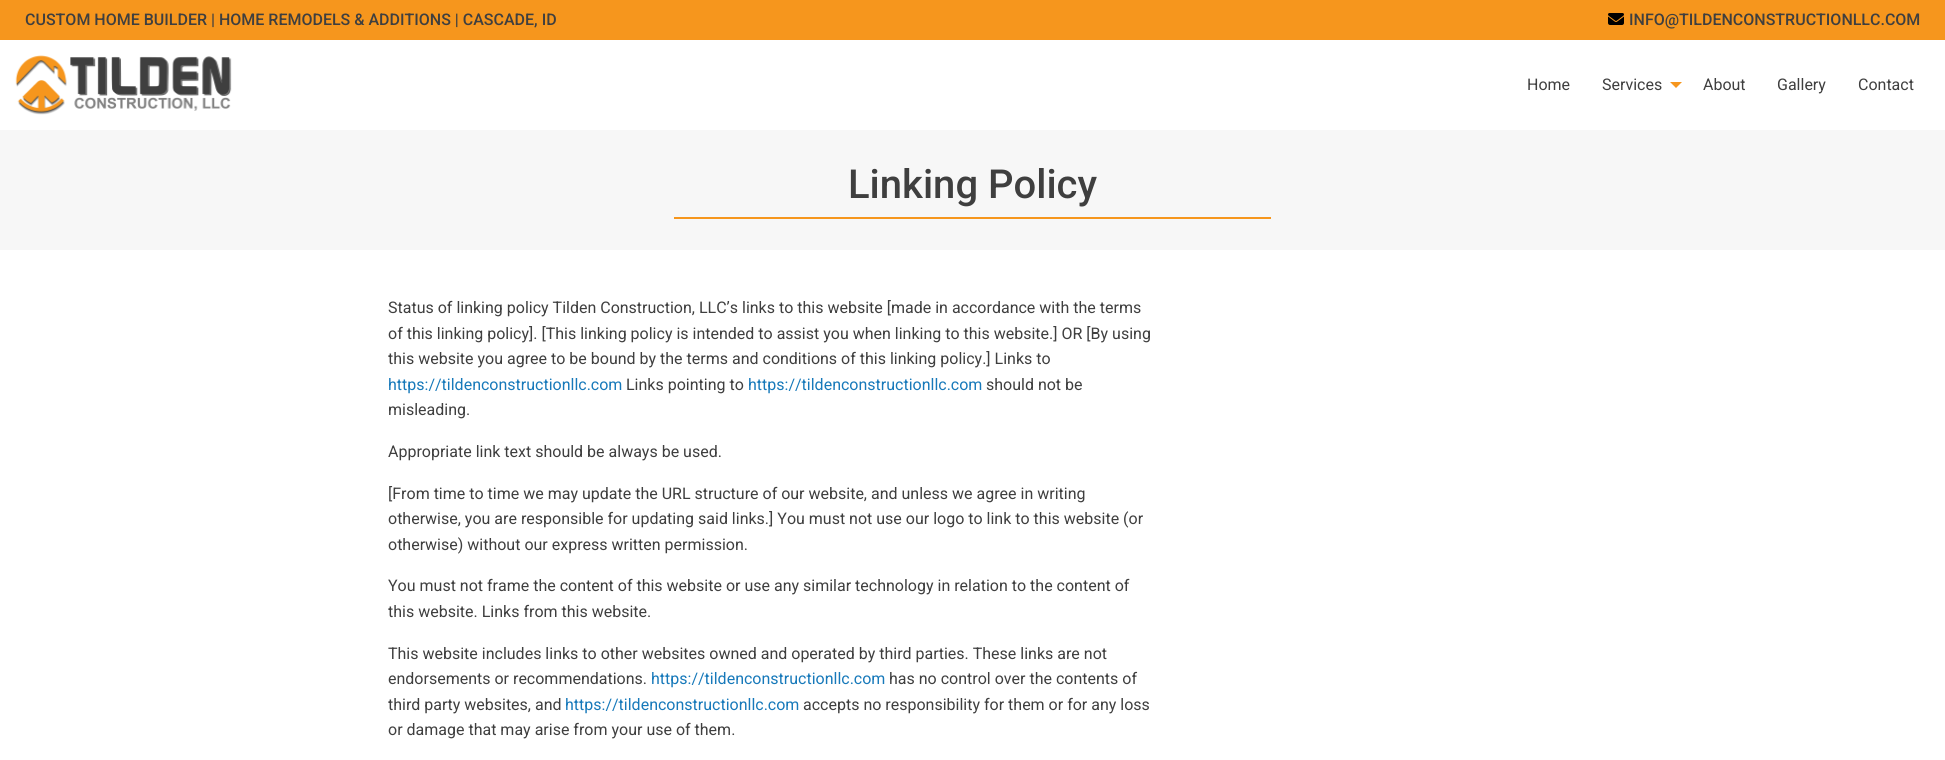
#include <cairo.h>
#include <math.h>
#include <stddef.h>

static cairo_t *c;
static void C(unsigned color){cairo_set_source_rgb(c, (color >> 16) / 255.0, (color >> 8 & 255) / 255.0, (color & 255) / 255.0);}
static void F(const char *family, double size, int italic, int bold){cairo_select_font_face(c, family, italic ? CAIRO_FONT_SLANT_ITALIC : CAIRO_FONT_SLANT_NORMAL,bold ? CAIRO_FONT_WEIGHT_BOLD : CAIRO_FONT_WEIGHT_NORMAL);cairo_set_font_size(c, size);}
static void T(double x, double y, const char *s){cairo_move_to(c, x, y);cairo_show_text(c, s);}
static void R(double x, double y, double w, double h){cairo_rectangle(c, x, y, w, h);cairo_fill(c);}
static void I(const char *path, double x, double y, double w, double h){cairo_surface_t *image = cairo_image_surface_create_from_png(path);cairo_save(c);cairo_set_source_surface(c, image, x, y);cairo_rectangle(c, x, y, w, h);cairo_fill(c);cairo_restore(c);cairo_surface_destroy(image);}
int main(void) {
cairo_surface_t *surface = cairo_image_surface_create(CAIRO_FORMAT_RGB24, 1945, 760);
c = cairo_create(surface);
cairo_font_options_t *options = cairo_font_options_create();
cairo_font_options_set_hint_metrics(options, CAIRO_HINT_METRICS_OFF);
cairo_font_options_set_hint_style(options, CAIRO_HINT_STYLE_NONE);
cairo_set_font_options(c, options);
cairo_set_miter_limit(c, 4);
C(0xffffff);
cairo_paint(c);
C(0xf6961d);
R(0,0,1945,40);
F("Roboto Medium",16,0,0);
C(0x3f3f3f);
T(25,25,"CUSTOM HOME BUILDER | HOME REMODELS & ADDITIONS | CASCADE, ID");
I("1.png",1608,13,16,12);
T(1629,25,"INFO@TILDENCONSTRUCTIONLLC.COM");
I("2.png",15,55,217,60);
F("Roboto",16,0,0);
T(1527,90,"Home");
T(1602,90,"Services");
C(0xf6961d);
cairo_new_path(c);
cairo_move_to(c,1670,82);
cairo_line_to(c,1682,82);
cairo_line_to(c,1676,88);
cairo_close_path(c);
cairo_fill(c);
C(0x3f3f3f);
T(1703,90,"About");
T(1777,90,"Gallery");
T(1858,90,"Contact");
C(0xf7f7f7);
R(0,130,1945,120);
F("Roboto Medium",40,0,0);
C(0x3f3f3f);
T(848,198,"Linking Policy");
C(0xf6961d);
R(674,217,597,2);
F("Roboto",16,0,0);
C(0x3f3f3f);
T(388,313,"Status of linking policy Tilden Construction, LLC’s links to this website [made in accordance with the terms");
T(388,339,"of this linking policy]. [This linking policy is intended to assist you when linking to this website.] OR [By using");
T(388,364,"this website you agree to be bound by the terms and conditions of this linking policy.] Links to");
C(0x1779ba);
T(388,390,"https://tildenconstructionllc.com");
C(0x3f3f3f);
T(626,390,"Links pointing to");
C(0x1779ba);
T(748,390,"https://tildenconstructionllc.com");
C(0x3f3f3f);
T(986,390,"should not be");
T(388,415,"misleading.");
T(388,457,"Appropriate link text should be always be used.");
T(388,499,"[From time to time we may update the URL structure of our website, and unless we agree in writing");
T(388,524,"otherwise, you are responsible for updating said links.] You must not use our logo to link to this website (or");
T(388,550,"otherwise) without our express written permission.");
T(388,591,"You must not frame the content of this website or use any similar technology in relation to the content of");
T(388,617,"this website. Links from this website.");
T(388,659,"This website includes links to other websites owned and operated by third parties. These links are not");
T(388,684,"endorsements or recommendations.");
C(0x1779ba);
T(651,684,"https://tildenconstructionllc.com");
C(0x3f3f3f);
T(889,684,"has no control over the contents of");
T(388,710,"third party websites, and");
C(0x1779ba);
T(565,710,"https://tildenconstructionllc.com");
C(0x3f3f3f);
T(803,710,"accepts no responsibility for them or for any loss");
T(388,735,"or damage that may arise from your use of them.");
cairo_surface_write_to_png(surface, "o.png");
cairo_font_options_destroy(options);
cairo_destroy(c);
cairo_surface_destroy(surface);
return 0;
}
